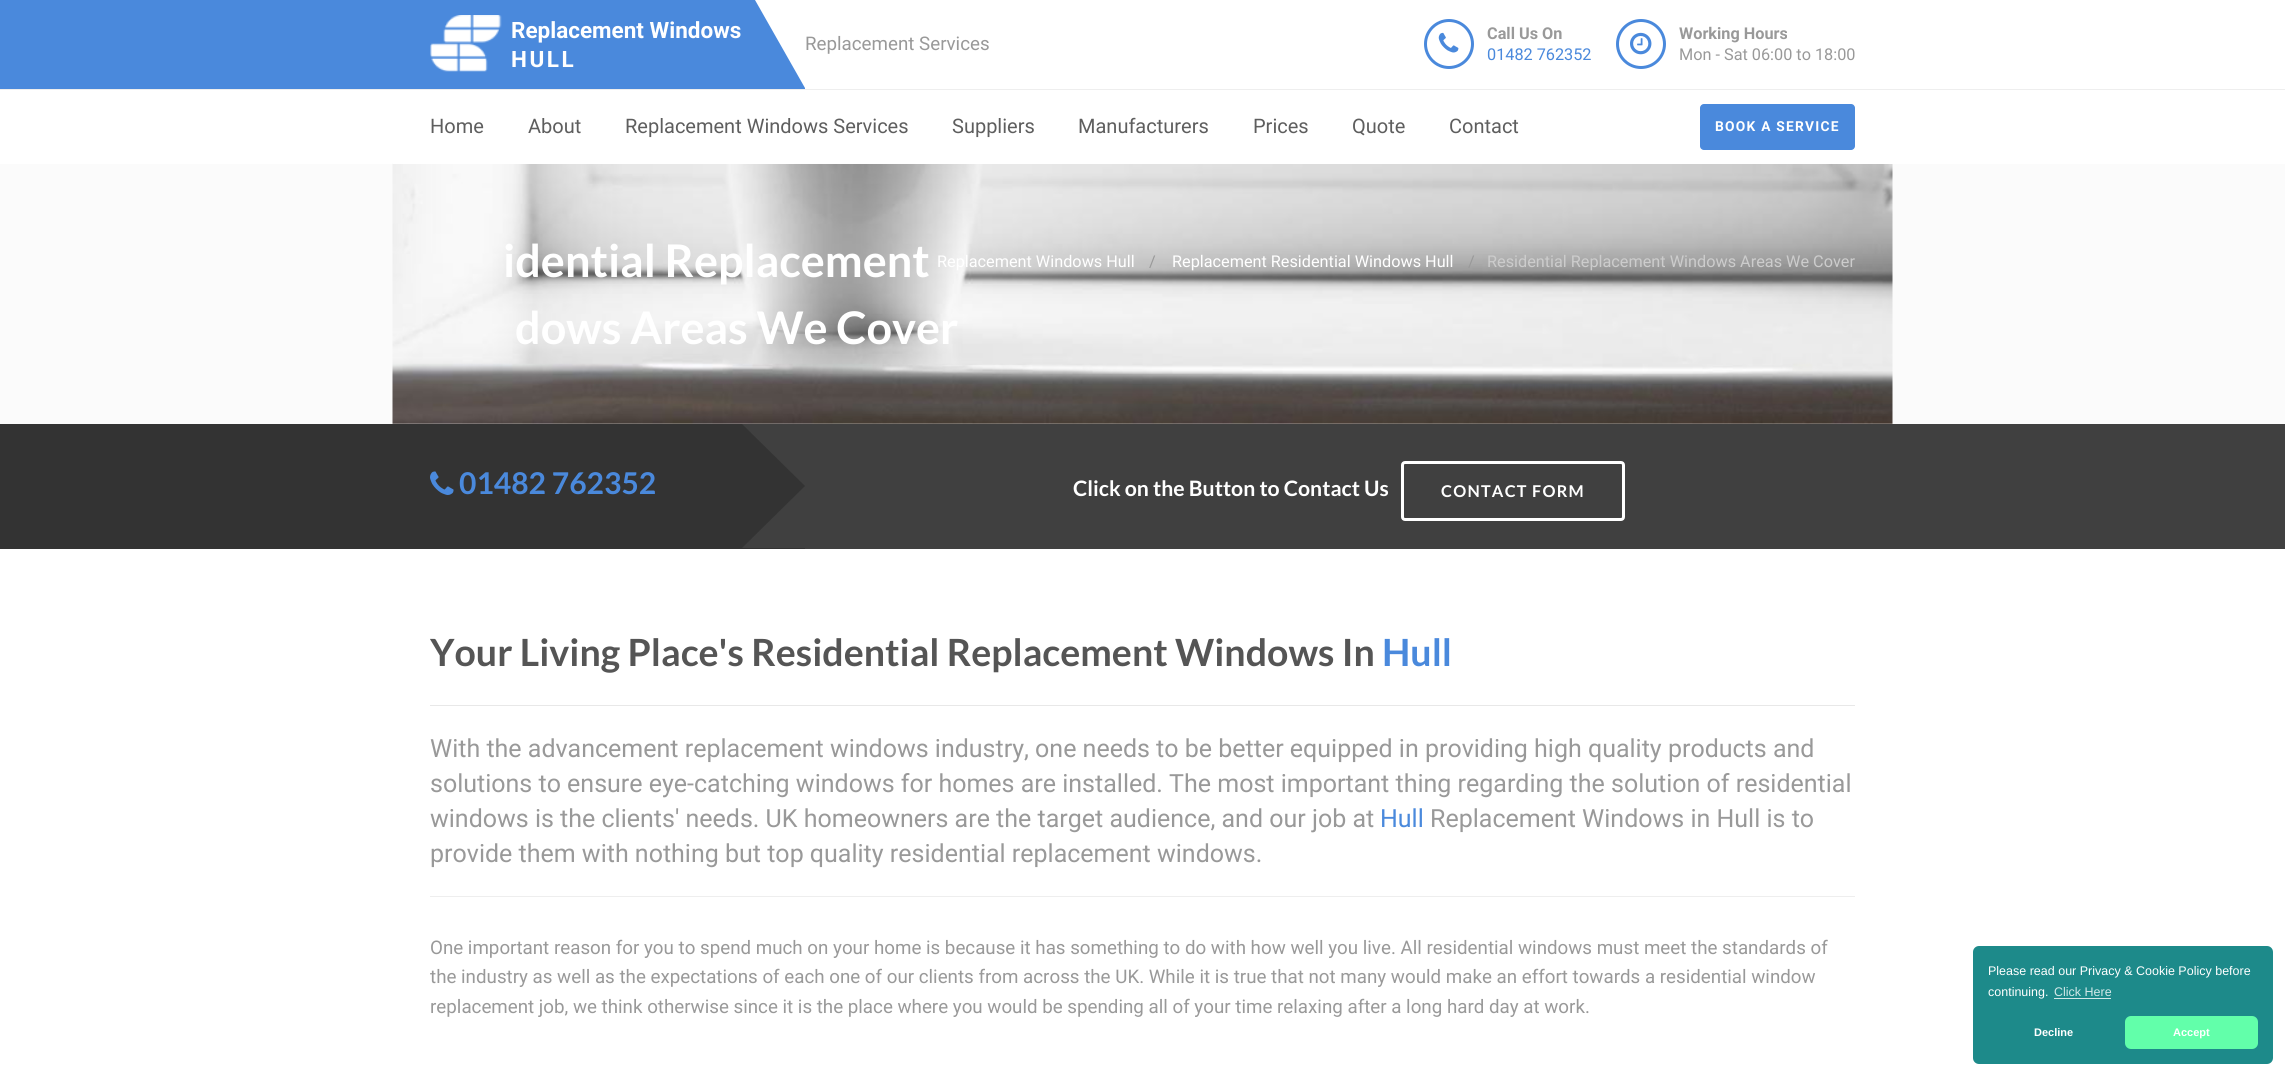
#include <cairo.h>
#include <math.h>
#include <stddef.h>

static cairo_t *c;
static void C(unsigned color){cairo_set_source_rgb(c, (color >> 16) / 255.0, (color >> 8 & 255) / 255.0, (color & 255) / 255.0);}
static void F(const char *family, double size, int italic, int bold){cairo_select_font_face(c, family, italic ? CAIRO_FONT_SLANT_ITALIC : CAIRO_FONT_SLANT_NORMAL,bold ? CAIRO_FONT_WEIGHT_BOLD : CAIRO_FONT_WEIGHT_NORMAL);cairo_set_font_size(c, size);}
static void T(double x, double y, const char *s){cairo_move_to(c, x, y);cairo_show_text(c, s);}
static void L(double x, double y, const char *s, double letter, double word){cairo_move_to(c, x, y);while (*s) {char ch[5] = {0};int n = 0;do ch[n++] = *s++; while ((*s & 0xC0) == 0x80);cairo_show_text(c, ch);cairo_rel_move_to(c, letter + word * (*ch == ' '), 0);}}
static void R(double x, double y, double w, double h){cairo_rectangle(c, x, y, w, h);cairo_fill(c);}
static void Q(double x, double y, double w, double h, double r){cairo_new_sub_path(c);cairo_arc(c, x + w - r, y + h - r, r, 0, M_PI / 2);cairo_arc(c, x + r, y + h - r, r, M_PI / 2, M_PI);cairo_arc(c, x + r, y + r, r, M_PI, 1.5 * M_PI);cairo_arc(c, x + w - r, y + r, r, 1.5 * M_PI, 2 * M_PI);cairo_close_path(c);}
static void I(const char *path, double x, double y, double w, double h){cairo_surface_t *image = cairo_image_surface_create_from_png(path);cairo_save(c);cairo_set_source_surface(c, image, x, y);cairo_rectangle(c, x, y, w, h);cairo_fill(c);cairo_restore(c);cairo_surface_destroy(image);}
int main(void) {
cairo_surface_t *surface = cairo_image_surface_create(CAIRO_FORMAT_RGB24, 2285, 1076);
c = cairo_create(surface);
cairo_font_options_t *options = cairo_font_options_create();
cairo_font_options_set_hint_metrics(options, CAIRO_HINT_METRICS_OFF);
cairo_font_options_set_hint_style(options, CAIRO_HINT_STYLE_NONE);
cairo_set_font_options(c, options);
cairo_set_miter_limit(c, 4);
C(0xffffff);
cairo_paint(c);
C(0x4a89dc);
R(0,0,805,89);
I("1.png",430,15,72,57);
F("Roboto",22.5,0,1);
C(0xffffff);
T(511,38,"Replacement Windows");
L(511,67,"HULL",2.5,0);
cairo_new_path(c);
cairo_move_to(c,805,0);
cairo_line_to(c,805,88);
cairo_line_to(c,755,0);
cairo_close_path(c);
cairo_fill(c);
F("Roboto",18.75,0,0);
C(0x999999);
T(805,50,"Replacement Services");
cairo_new_path(c);
cairo_arc(c,1449,44,23.5,0,2 * M_PI);
C(0x4a89dc);
cairo_set_line_width(c,3);
cairo_stroke(c);
I("2.png",1438,32,21,21);
F("Roboto",16.25,0,1);
C(0x999999);
T(1487,39,"Call Us On");
F("Roboto",16.25,0,0);
C(0x4a89dc);
T(1487,60,"01482 762352");
cairo_new_path(c);
cairo_arc(c,1641,44,23.5,0,2 * M_PI);
cairo_stroke(c);
I("3.png",1630,32,22,23);
F("Roboto",16.25,0,1);
C(0x999999);
T(1679,39,"Working Hours");
F("Roboto",16.25,0,0);
T(1679,60,"Mon - Sat 06:00 to 18:00");
C(0xfbfbfb);
R(0,164,2285,260);
I("4.png",392,163,1501,261);
cairo_set_source_rgba(c,1,1,1,0.97);
R(393,163,1500,1);
C(0xeeeeee);
R(0,89,2285,1);
F("Roboto",20,0,0);
C(0x5e5e5e);
T(430,133,"Home");
T(528,133,"About");
T(625,133,"Replacement Windows Services");
T(952,133,"Suppliers");
T(1078,133,"Manufacturers");
T(1253,133,"Prices");
T(1352,133,"Quote");
T(1449,133,"Contact");
C(0x4a89dc);
Q(1700,104,155,46,4);
cairo_fill(c);
F("Roboto",13.75,0,1);
C(0xffffff);
L(1715,131,"BOOK A SERVICE",1.25,0);
F("Lato",45,0,1);
T(503,277,"idential Replacement");
T(515,344,"dows Areas We Cover");
F("Roboto",16.25,0,0);
T(937,267,"Replacement Windows Hull");
C(0x999999);
T(1149,267,"/");
C(0xffffff);
T(1172,267,"Replacement Residential Windows Hull");
C(0x999999);
T(1468,267,"/");
C(0xcccccc);
T(1487,267,"Residential Replacement Windows Areas We Cover");
C(0x404040);
R(805,424,1480,125);
C(0x333333);
R(0,424,805,125);
I("5.png",430,471,24,24);
F("Lato",30,0,1);
C(0x4a89dc);
T(459,494,"01482 762352");
C(0x404040);
cairo_new_path(c);
cairo_move_to(c,805,424);
cairo_line_to(c,805,486);
cairo_line_to(c,742,424);
cairo_close_path(c);
cairo_fill(c);
cairo_new_path(c);
cairo_move_to(c,805,548);
cairo_line_to(c,742,548);
cairo_line_to(c,805,486);
cairo_close_path(c);
cairo_fill(c);
F("Lato",21.25,0,1);
C(0xffffff);
T(1073,496,"Click on the Button to Contact Us");
Q(1402.5,462.5,221,57,2.5);
cairo_stroke(c);
F("Lato",16.25,0,1);
L(1441,497,"CONTACT FORM",1.25,0);
F("Lato",37.5,0,1);
C(0x555555);
T(430,666,"Your Living Place's Residential Replacement Windows In");
C(0x4a89dc);
T(1382,666,"Hull");
C(0xe8e8e8);
R(430,705,1425,1);
F("Roboto",25,0,0);
C(0x999999);
T(430,757,"With the advancement replacement windows industry, one needs to be better equipped in providing high quality products and");
T(430,792,"solutions to ensure eye-catching windows for homes are installed. The most important thing regarding the solution of residential");
T(430,827,"windows is the clients' needs. UK homeowners are the target audience, and our job at");
C(0x4a89dc);
T(1380,827,"Hull");
C(0x999999);
T(1430,827,"Replacement Windows in Hull is to");
T(430,862,"provide them with nothing but top quality residential replacement windows.");
C(0xeeeeee);
R(430,896,1425,1);
F("Roboto",18.75,0,0);
C(0x999999);
T(430,954,"One important reason for you to spend much on your home is because it has something to do with how well you live. All residential windows must meet the standards of");
T(430,983,"the industry as well as the expectations of each one of our clients from across the UK. While it is true that not many would make an effort towards a residential window");
T(430,1013,"replacement job, we think otherwise since it is the place where you would be spending all of your time relaxing after a long hard day at work.");
C(0x1d8a8a);
Q(1973,946,300,118,6);
cairo_fill(c);
F("Liberation Sans",12.5,0,0);
C(0xffffff);
T(1988,975,"Please read our Privacy & Cookie Policy before");
T(1988,996,"continuing.");
C(0xd2e8e8);
T(2054,996,"Click Here");
R(2054,998,57,1);
F("Liberation Sans",11,0,1);
C(0xffffff);
T(2034,1036,"Decline");
C(0x62ffaa);
Q(2125,1016,133,33,6);
cairo_fill(c);
C(0xffffff);
T(2173,1036,"Accept");
cairo_surface_write_to_png(surface, "o.png");
cairo_font_options_destroy(options);
cairo_destroy(c);
cairo_surface_destroy(surface);
return 0;
}
